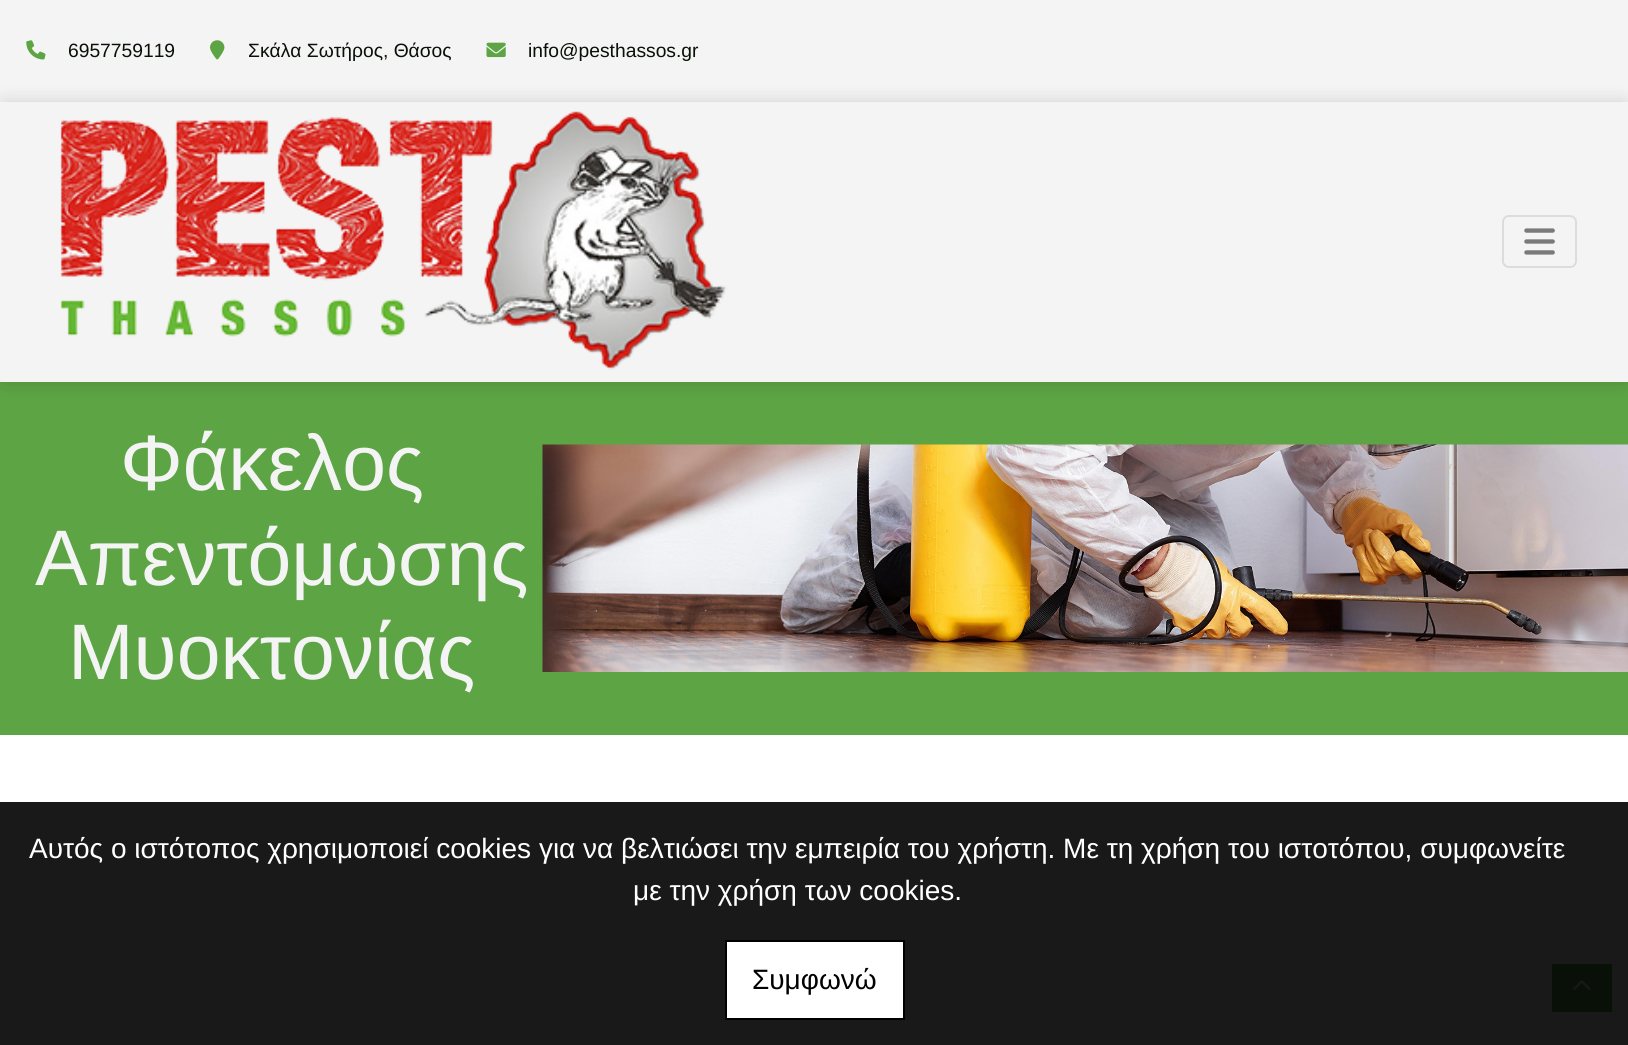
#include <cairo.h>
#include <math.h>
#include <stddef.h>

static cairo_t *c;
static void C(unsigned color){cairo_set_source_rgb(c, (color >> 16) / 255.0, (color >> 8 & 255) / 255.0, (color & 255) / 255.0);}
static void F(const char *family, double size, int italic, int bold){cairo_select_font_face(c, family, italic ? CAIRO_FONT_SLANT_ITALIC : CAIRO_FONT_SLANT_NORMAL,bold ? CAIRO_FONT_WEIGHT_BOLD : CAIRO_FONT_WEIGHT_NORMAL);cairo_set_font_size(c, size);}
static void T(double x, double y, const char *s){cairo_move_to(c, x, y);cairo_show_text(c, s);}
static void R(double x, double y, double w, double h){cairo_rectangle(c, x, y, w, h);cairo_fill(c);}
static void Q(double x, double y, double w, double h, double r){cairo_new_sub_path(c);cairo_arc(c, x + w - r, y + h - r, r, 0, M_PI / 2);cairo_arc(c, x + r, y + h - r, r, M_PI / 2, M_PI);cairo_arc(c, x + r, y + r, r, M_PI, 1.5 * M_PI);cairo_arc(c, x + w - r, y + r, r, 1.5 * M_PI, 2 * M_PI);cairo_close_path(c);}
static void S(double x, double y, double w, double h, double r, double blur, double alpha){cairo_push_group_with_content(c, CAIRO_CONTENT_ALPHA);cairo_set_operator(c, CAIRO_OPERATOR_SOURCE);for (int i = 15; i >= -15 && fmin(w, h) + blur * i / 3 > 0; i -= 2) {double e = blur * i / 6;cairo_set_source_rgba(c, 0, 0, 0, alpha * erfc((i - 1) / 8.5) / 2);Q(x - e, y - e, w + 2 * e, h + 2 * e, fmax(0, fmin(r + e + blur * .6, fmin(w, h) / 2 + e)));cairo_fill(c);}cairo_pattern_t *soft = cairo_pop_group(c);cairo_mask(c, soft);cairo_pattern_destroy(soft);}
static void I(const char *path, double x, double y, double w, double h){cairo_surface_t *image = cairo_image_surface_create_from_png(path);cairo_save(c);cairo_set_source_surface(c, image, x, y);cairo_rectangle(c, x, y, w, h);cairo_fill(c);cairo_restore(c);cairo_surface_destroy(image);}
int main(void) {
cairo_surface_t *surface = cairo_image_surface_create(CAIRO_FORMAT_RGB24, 1628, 1045);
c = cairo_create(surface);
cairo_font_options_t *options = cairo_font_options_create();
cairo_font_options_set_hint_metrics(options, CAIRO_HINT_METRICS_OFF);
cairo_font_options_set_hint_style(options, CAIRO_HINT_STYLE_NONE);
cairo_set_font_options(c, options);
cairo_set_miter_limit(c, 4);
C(0xffffff);
cairo_paint(c);
C(0x191919);
R(0,802,1628,243);
C(0xf4f4f4);
R(0,0,1628,102);
I("1.png",26,40,20,20);
F("Arimo",19.25,0,0);
C(0x091007);
T(68,57,"6957759119");
I("2.png",210,40,15,20);
T(248,57,"Σκάλα Σωτήρος, Θάσος");
I("3.png",486,42,20,16);
T(528,57,"info@pesthassos.gr");
C(0x5ca444);
R(0,382,1628,353);
C(0x000000);
S(0,102,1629,280,5,9,.15);
C(0xf4f4f4);
cairo_new_path(c);
cairo_move_to(c,0,102);
cairo_line_to(c,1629,102);
cairo_line_to(c,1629,377);
cairo_curve_to(c,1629,380,1627,382,1624,382);
cairo_line_to(c,5,382);
cairo_curve_to(c,2,382,0,380,0,377);
cairo_close_path(c);
cairo_fill(c);
I("4.png",60,111,667,259);
Q(1503,216,73,51,6);
C(0xdcdcdc);
cairo_stroke(c);
I("5.png",1524,228,31,27);
F("Arimo",78.75,0,0);
C(0xf4f4f4);
T(120,490,"Φάκελος");
T(35,585,"Απεντόμωσης");
T(68,679,"Μυοκτονίας");
I("6.png",542,444,1086,228);
F("Arimo",28,0,0);
C(0xffffff);
T(29,858,"Αυτός ο ιστότοπος χρησιμοποιεί cookies για να βελτιώσει την εμπειρία του χρήστη. Με τη χρήση του ιστοτόπου, συμφωνείτε");
T(633,900,"με την χρήση των cookies.");
cairo_rectangle(c,726,941,178,78);
cairo_fill_preserve(c);
C(0x000000);
cairo_stroke(c);
T(752,989,"Συμφωνώ");
C(0x091007);
R(1552,964,60,48);
I("7.png",1573,980,18,10);
cairo_surface_write_to_png(surface, "o.png");
cairo_font_options_destroy(options);
cairo_destroy(c);
cairo_surface_destroy(surface);
return 0;
}
